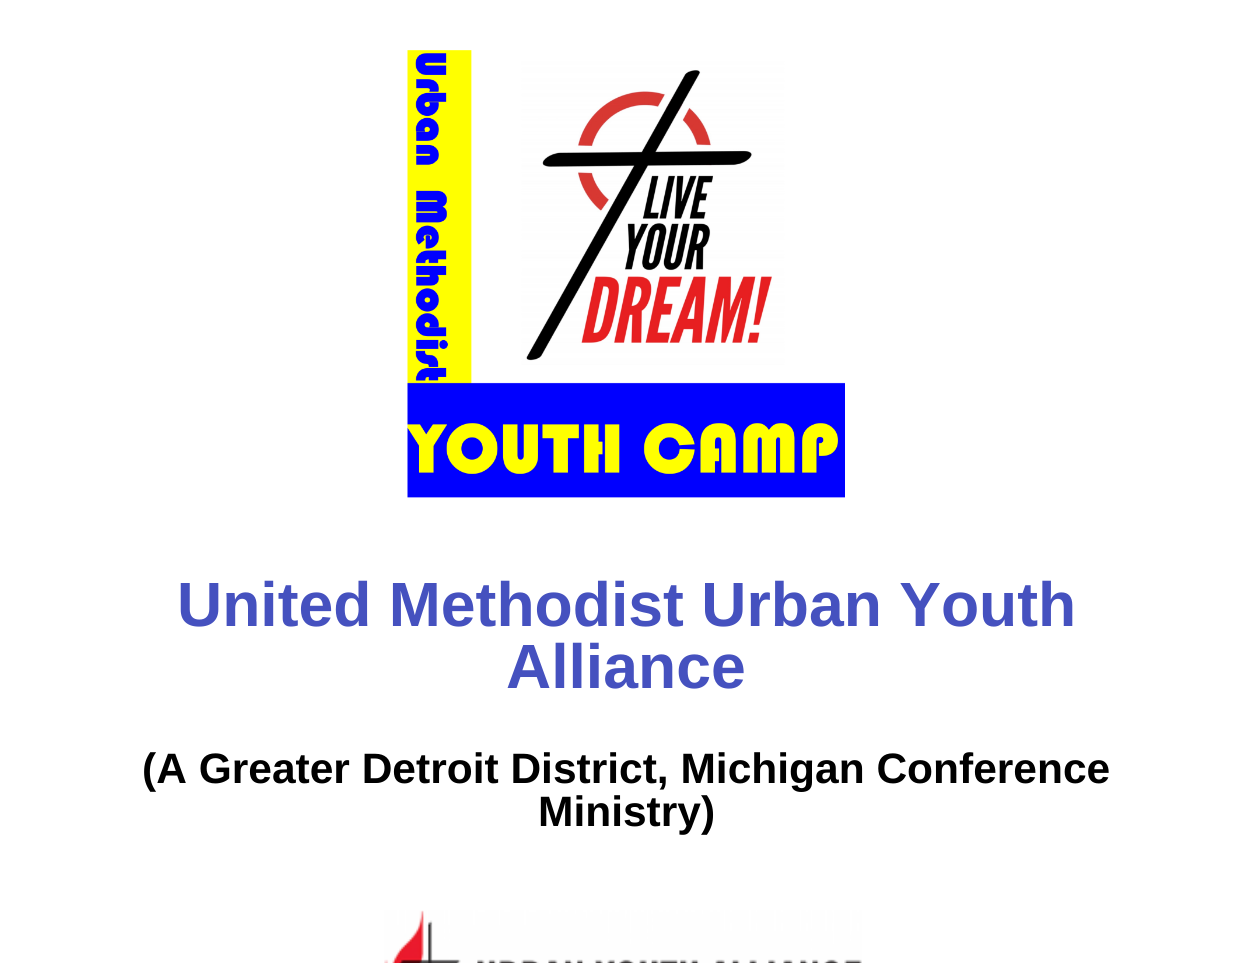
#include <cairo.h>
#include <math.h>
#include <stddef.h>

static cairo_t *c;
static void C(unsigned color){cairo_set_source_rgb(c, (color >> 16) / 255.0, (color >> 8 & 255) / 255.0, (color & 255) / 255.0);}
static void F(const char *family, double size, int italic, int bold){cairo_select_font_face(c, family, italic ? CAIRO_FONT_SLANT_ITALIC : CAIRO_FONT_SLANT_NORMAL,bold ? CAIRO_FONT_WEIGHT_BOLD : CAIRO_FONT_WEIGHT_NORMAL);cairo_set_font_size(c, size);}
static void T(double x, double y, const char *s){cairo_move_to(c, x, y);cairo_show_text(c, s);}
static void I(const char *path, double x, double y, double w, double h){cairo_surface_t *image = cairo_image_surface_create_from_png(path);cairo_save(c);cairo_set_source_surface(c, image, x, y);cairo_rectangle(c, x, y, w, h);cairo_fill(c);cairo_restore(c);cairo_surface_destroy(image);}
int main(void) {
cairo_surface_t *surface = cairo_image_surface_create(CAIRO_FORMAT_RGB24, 1251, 963);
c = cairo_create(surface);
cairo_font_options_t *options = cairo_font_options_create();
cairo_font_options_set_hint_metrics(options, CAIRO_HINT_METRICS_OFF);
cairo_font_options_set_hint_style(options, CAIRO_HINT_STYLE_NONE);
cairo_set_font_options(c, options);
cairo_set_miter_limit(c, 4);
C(0xffffff);
cairo_paint(c);
I("1.png",407,50,438,448);
F("Liberation Sans",62.5,0,1);
C(0x4551bf);
T(177,626,"United Methodist Urban Youth");
T(506,688,"Alliance");
F("Liberation Sans",42.5,0,1);
C(0x000000);
T(142,783,"(A Greater Detroit District, Michigan Conference");
T(538,826,"Ministry)");
I("2.png",384,910,478,53);
cairo_surface_write_to_png(surface, "o.png");
cairo_font_options_destroy(options);
cairo_destroy(c);
cairo_surface_destroy(surface);
return 0;
}
